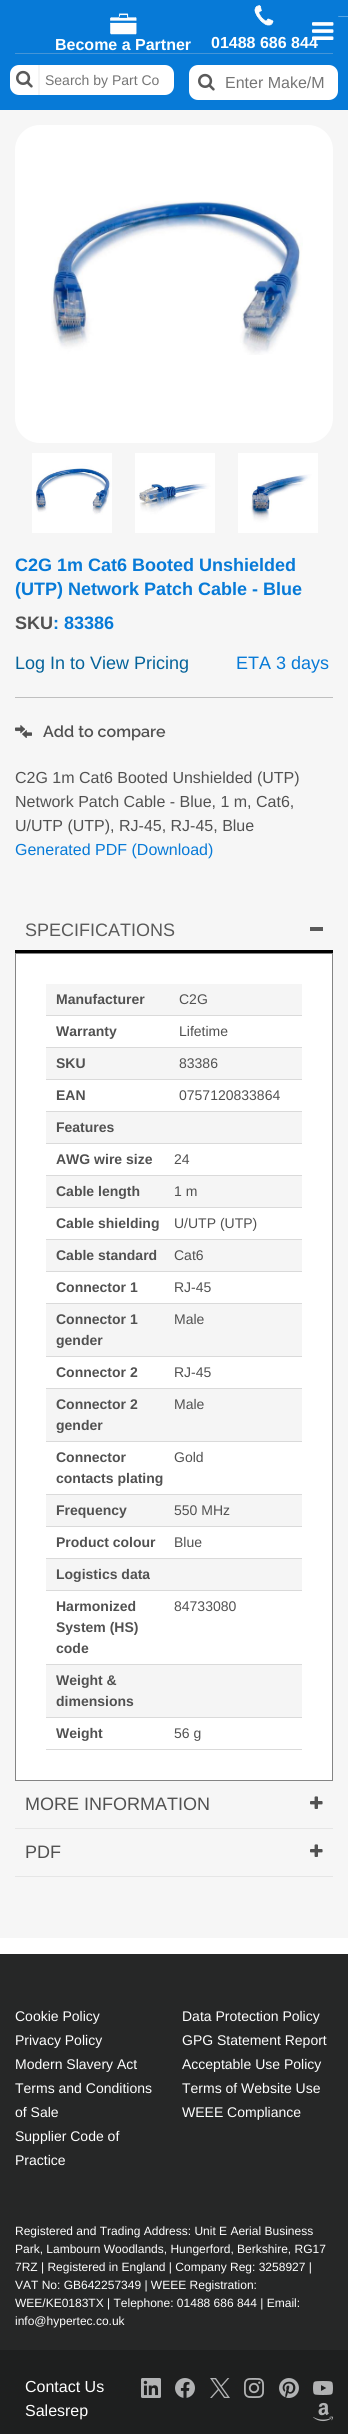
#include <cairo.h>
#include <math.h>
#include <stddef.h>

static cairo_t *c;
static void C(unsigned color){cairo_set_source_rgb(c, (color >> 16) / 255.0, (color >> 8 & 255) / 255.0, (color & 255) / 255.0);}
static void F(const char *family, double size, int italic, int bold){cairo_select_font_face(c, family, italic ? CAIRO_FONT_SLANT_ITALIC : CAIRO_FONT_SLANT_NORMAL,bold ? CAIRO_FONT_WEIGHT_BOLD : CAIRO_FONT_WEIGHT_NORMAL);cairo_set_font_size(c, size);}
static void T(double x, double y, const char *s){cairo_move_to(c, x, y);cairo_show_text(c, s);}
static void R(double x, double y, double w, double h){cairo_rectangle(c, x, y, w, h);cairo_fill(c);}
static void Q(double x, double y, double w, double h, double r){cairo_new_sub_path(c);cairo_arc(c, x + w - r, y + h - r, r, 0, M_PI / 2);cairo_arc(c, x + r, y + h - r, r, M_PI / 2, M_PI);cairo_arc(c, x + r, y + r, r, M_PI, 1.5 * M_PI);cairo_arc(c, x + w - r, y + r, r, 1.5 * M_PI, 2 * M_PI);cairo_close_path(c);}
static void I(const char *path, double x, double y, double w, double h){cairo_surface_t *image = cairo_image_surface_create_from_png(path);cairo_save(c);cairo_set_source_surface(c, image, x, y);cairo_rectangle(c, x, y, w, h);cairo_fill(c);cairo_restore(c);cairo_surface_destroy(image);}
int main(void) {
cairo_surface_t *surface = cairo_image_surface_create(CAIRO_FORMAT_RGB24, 348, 2434);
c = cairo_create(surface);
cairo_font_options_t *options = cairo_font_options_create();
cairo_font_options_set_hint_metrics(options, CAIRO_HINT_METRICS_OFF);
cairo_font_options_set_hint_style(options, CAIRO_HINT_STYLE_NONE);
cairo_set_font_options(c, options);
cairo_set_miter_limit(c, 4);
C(0xffffff);
cairo_paint(c);
C(0x077ad7);
R(0,0,348,110);
I("1.png",312,22,22,18);
C(0x4595d7);
R(15,53,318,1);
I("2.png",338,16,10,1);
I("3.png",110,13,27,22);
F("Liberation Sans",16,0,1);
C(0xffffff);
T(55,50,"Become a Partner");
I("4.png",254,5,20,21);
T(211,48,"01488 686 844");
Q(10,65,164,30,9);
cairo_fill(c);
C(0xf5f5f5);
R(38,65,2,30);
I("5.png",16,70,17,18);
F("Liberation Sans",14,0,0);
C(0x757575);
T(45,85,"Search by Part Co");
C(0xffffff);
Q(189,65,149,35,9);
cairo_fill(c);
I("5.png",198,73,17,18);
F("Liberation Sans",16,0,0);
C(0x757575);
T(225,88,"Enter Make/M");
C(0xf6f6f6);
R(0,110,348,1828);
C(0xffffff);
Q(15,125,318,318,25);
cairo_fill(c);
I("6.png",51,200,252,155);
I("7.png",32,453,80,80);
I("8.png",135,453,80,80);
I("9.png",238,453,80,80);
F("Liberation Sans",18,0,1);
C(0x077ad7);
T(15,571,"C2G 1m Cat6 Booted Unshielded");
T(15,595,"(UTP) Network Patch Cable - Blue");
C(0x515151);
T(15,629,"SKU");
C(0x077ad7);
T(53,629,": 83386");
F("Liberation Sans",18,0,0);
C(0x05639a);
T(15,669,"Log In to View Pricing");
C(0x077ad7);
T(236,669,"ETA 3 days");
C(0xbfbfbf);
R(15,697,318,1);
I("10.png",15,725,17,13);
F("Raleway SemiBold",16,0,0);
C(0x515151);
T(43,737,"Add to compare");
F("Liberation Sans",16,0,0);
T(15,783,"C2G 1m Cat6 Booted Unshielded (UTP)");
T(15,807,"Network Patch Cable - Blue, 1 m, Cat6,");
T(15,831,"U/UTP (UTP), RJ-45, RJ-45, Blue");
C(0x077ad7);
T(15,855,"Generated PDF (Download)");
C(0x000000);
R(15,950,318,3);
F("Liberation Sans",18,0,0);
C(0x5a5a5a);
T(25,936,"SPECIFICATIONS");
R(310,927,13,4);
C(0xffffff);
cairo_rectangle(c,15.5,953.5,317,827);
cairo_fill_preserve(c);
C(0x848484);
cairo_set_line_width(c,1);
cairo_stroke(c);
C(0xf5f5f5);
R(46,984,256,31);
C(0xdadada);
R(46,1015,256,1);
F("Liberation Sans",14,0,1);
C(0x515151);
T(56,1004,"Manufacturer");
F("Liberation Sans",14,0,0);
T(179,1004,"C2G");
C(0xdadada);
R(46,1047,256,1);
F("Liberation Sans",14,0,1);
C(0x515151);
T(56,1036,"Warranty");
F("Liberation Sans",14,0,0);
T(179,1036,"Lifetime");
C(0xf5f5f5);
R(46,1048,256,31);
C(0xdadada);
R(46,1079,256,1);
F("Liberation Sans",14,0,1);
C(0x515151);
T(56,1068,"SKU");
F("Liberation Sans",14,0,0);
T(179,1068,"83386");
C(0xdadada);
R(46,1111,256,1);
F("Liberation Sans",14,0,1);
C(0x515151);
T(56,1100,"EAN");
F("Liberation Sans",14,0,0);
T(179,1100,"0757120833864");
C(0xf5f5f5);
R(46,1112,256,31);
C(0xdadada);
R(46,1143,256,1);
F("Liberation Sans",14,0,1);
C(0x515151);
T(56,1132,"Features");
C(0xdadada);
R(46,1175,256,1);
C(0x515151);
T(56,1164,"AWG wire size");
F("Liberation Sans",14,0,0);
T(174,1164,"24");
C(0xf5f5f5);
R(46,1176,256,31);
C(0xdadada);
R(46,1207,256,1);
F("Liberation Sans",14,0,1);
C(0x515151);
T(56,1196,"Cable length");
F("Liberation Sans",14,0,0);
T(174,1196,"1 m");
C(0xdadada);
R(46,1239,256,1);
F("Liberation Sans",14,0,1);
C(0x515151);
T(56,1228,"Cable shielding");
F("Liberation Sans",14,0,0);
T(174,1228,"U/UTP (UTP)");
C(0xf5f5f5);
R(46,1240,256,31);
C(0xdadada);
R(46,1271,256,1);
F("Liberation Sans",14,0,1);
C(0x515151);
T(56,1260,"Cable standard");
F("Liberation Sans",14,0,0);
T(174,1260,"Cat6");
C(0xdadada);
R(46,1303,256,1);
F("Liberation Sans",14,0,1);
C(0x515151);
T(56,1292,"Connector 1");
F("Liberation Sans",14,0,0);
T(174,1292,"RJ-45");
C(0xf5f5f5);
R(46,1304,256,52);
C(0xdadada);
R(46,1356,256,1);
F("Liberation Sans",14,0,1);
C(0x515151);
T(56,1324,"Connector 1");
T(56,1345,"gender");
F("Liberation Sans",14,0,0);
T(174,1324,"Male");
C(0xdadada);
R(46,1388,256,1);
F("Liberation Sans",14,0,1);
C(0x515151);
T(56,1377,"Connector 2");
F("Liberation Sans",14,0,0);
T(174,1377,"RJ-45");
C(0xf5f5f5);
R(46,1389,256,52);
C(0xdadada);
R(46,1441,256,1);
F("Liberation Sans",14,0,1);
C(0x515151);
T(56,1409,"Connector 2");
T(56,1430,"gender");
F("Liberation Sans",14,0,0);
T(174,1409,"Male");
C(0xdadada);
R(46,1494,256,1);
F("Liberation Sans",14,0,1);
C(0x515151);
T(56,1462,"Connector");
T(56,1483,"contacts plating");
F("Liberation Sans",14,0,0);
T(174,1462,"Gold");
C(0xf5f5f5);
R(46,1495,256,31);
C(0xdadada);
R(46,1526,256,1);
F("Liberation Sans",14,0,1);
C(0x515151);
T(56,1515,"Frequency");
F("Liberation Sans",14,0,0);
T(174,1515,"550 MHz");
C(0xdadada);
R(46,1558,256,1);
F("Liberation Sans",14,0,1);
C(0x515151);
T(56,1547,"Product colour");
F("Liberation Sans",14,0,0);
T(174,1547,"Blue");
C(0xf5f5f5);
R(46,1559,256,31);
C(0xdadada);
R(46,1590,256,1);
F("Liberation Sans",14,0,1);
C(0x515151);
T(56,1579,"Logistics data");
C(0xdadada);
R(46,1664,256,1);
C(0x515151);
T(56,1611,"Harmonized");
T(56,1632,"System (HS)");
T(56,1653,"code");
F("Liberation Sans",14,0,0);
T(174,1611,"84733080");
C(0xf5f5f5);
R(46,1665,256,52);
C(0xdadada);
R(46,1717,256,1);
F("Liberation Sans",14,0,1);
C(0x515151);
T(56,1685,"Weight &");
T(56,1706,"dimensions");
C(0xdadada);
R(46,1749,256,1);
C(0x515151);
T(56,1738,"Weight");
F("Liberation Sans",14,0,0);
T(174,1738,"56 g");
C(0xe6e6e6);
R(15,1828,318,1);
F("Liberation Sans",18,0,0);
C(0x515151);
T(25,1810,"MORE INFORMATION");
I("11.png",310,1796,13,13);
C(0xe6e6e6);
R(15,1876,318,1);
C(0x515151);
T(25,1858,"PDF");
I("11.png",310,1844,13,13);
C(0x262727);
R(0,1954,348,396);
F("Liberation Sans",14,0,0);
C(0xffffff);
T(15,2021,"Cookie Policy");
T(182,2021,"Data Protection Policy");
T(15,2045,"Privacy Policy");
T(182,2045,"GPG Statement Report");
T(15,2069,"Modern Slavery Act");
T(182,2069,"Acceptable Use Policy");
T(15,2093,"Terms and Conditions");
T(15,2117,"of Sale");
T(182,2093,"Terms of Website Use");
T(182,2117,"WEEE Compliance");
T(15,2141,"Supplier Code of");
T(15,2165,"Practice");
F("Liberation Sans",12,0,0);
T(15,2235,"Registered and Trading Address: Unit E Aerial Business");
T(15,2253,"Park, Lambourn Woodlands, Hungerford, Berkshire, RG17");
T(15,2271,"7RZ | Registered in England | Company Reg: 3258927 |");
T(15,2289,"VAT No: GB642257349 | WEEE Registration:");
T(15,2307,"WEE/KE0183TX | Telephone: 01488 686 844 | Email:");
T(15,2325,"info@hypertec.co.uk");
C(0x1e1f1f);
R(0,2350,348,84);
F("Liberation Sans",16,0,0);
C(0xffffff);
T(25,2392,"Contact Us");
T(25,2416,"Salesrep");
I("12.png",141,2378,20,20);
I("13.png",175,2378,20,20);
I("14.png",210,2378,20,20);
I("15.png",244,2378,20,20);
I("16.png",279,2378,20,20);
I("17.png",313,2381,20,14);
I("18.png",313,2402,20,20);
cairo_surface_write_to_png(surface, "o.png");
cairo_font_options_destroy(options);
cairo_destroy(c);
cairo_surface_destroy(surface);
return 0;
}
